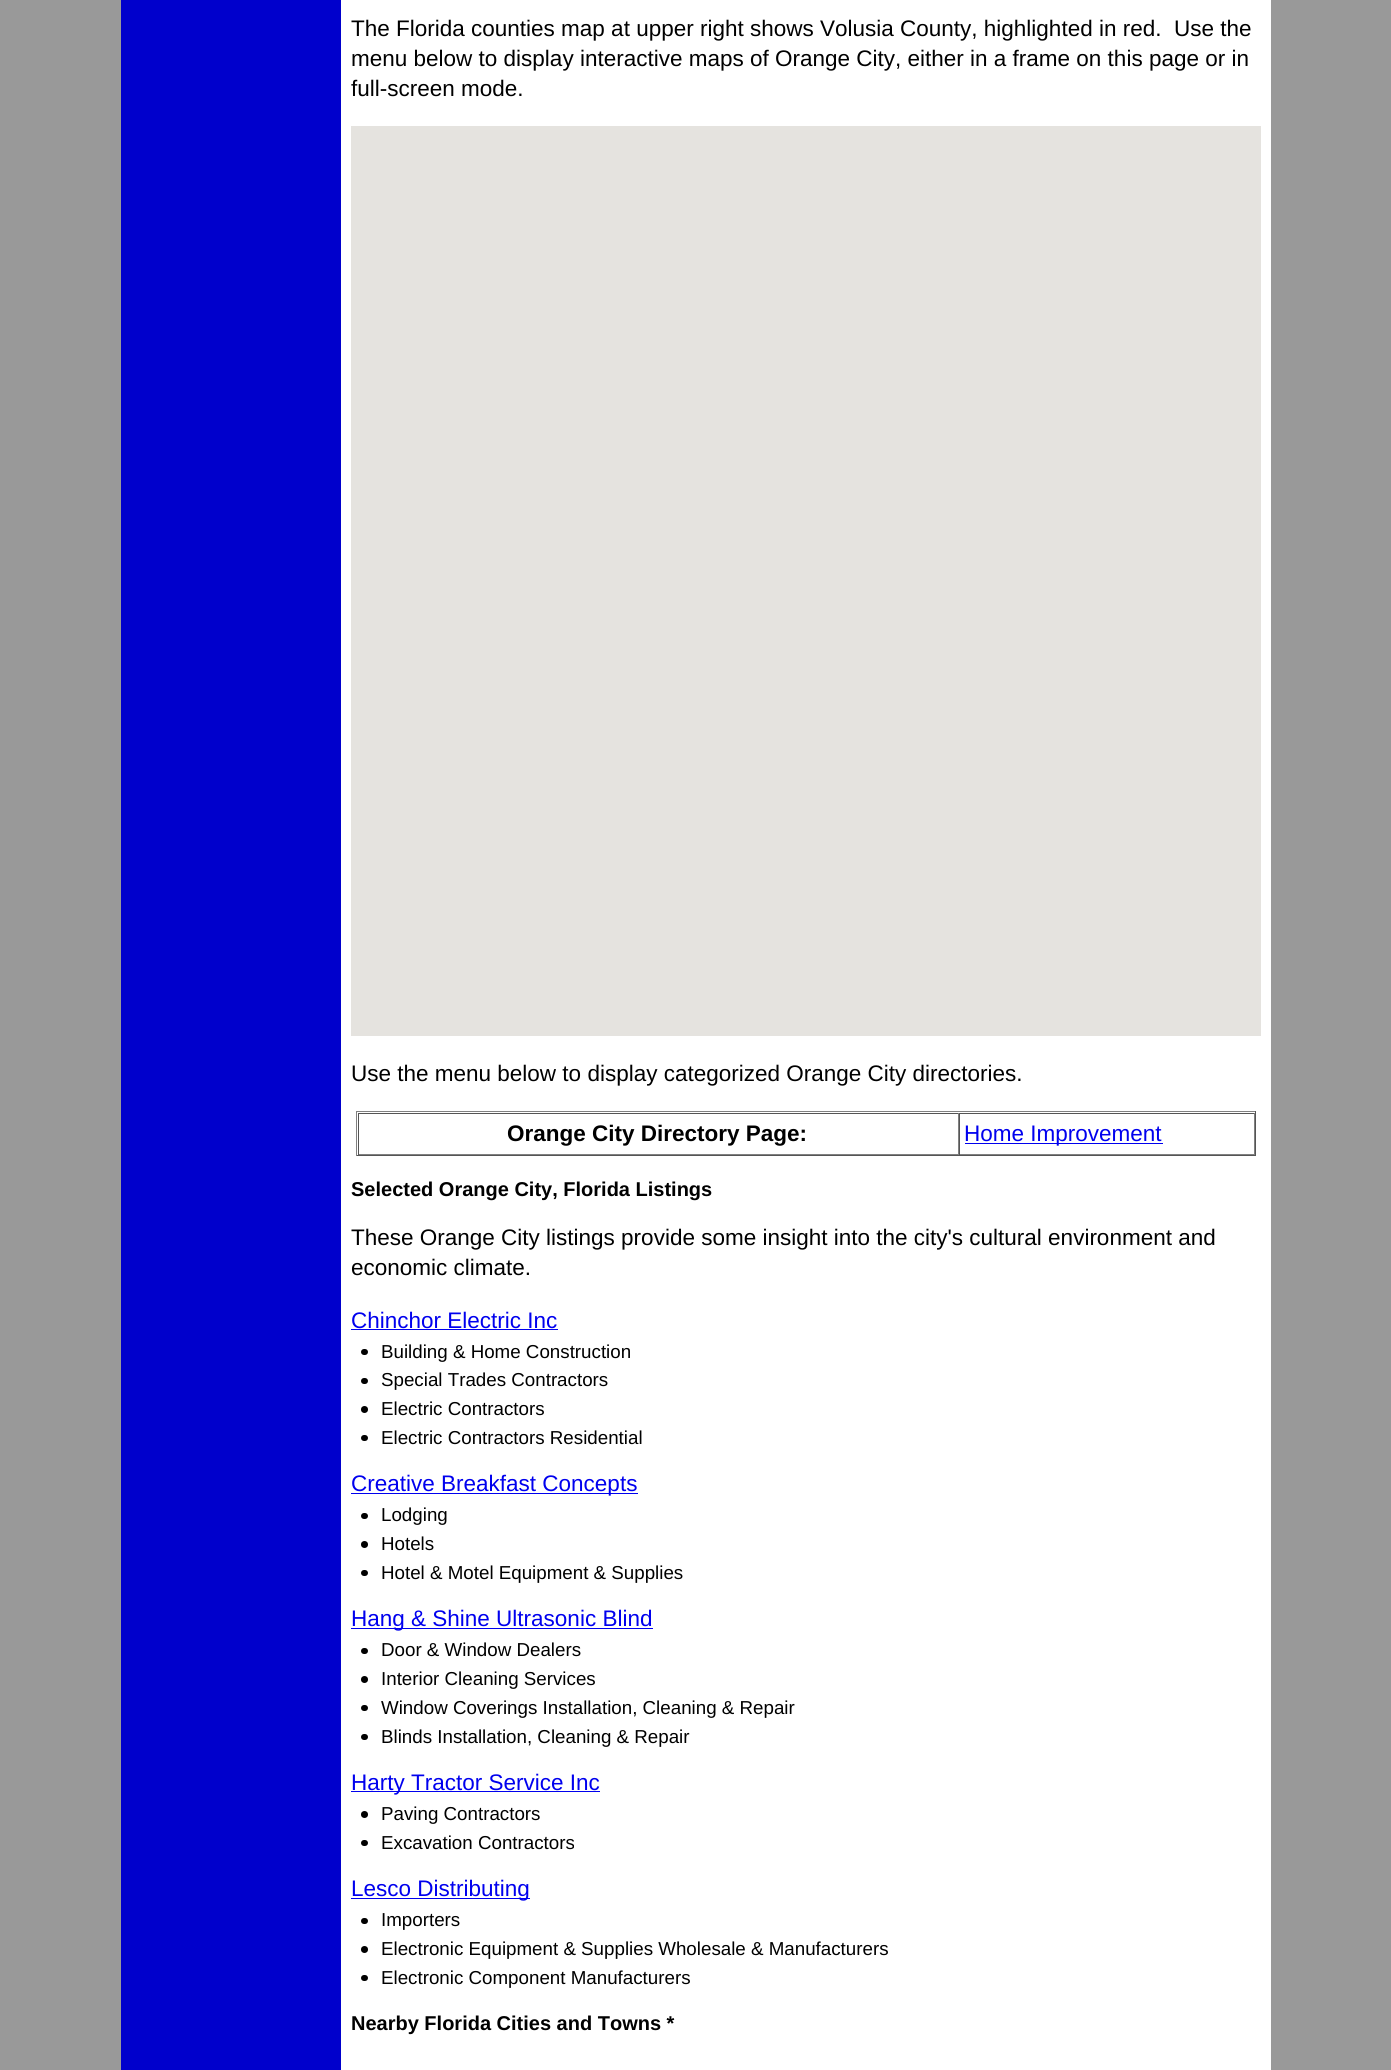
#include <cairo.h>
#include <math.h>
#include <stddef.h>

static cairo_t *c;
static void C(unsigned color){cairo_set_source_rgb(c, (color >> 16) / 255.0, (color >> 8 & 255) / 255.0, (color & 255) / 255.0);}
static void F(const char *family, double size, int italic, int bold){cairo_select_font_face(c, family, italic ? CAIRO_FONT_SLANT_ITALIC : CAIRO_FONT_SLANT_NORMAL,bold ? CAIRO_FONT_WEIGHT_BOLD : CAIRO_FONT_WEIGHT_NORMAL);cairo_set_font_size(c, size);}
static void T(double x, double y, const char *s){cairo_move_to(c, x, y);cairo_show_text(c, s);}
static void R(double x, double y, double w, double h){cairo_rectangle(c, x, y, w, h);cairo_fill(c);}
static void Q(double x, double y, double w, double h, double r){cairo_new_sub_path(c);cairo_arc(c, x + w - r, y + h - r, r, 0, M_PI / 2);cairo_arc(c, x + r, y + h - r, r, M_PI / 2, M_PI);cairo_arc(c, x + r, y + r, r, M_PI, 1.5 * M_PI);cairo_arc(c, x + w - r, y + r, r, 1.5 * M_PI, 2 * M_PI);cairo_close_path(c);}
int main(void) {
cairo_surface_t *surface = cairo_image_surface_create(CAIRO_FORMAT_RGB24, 1391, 2070);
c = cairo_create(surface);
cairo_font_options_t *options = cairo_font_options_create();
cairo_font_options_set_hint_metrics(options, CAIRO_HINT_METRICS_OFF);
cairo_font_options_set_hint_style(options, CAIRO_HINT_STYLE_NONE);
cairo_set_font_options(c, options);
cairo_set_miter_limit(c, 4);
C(0x999999);
cairo_paint(c);
C(0xffffff);
R(341,0,930,2070);
C(0x0000cc);
R(121,0,220,2070);
F("Liberation Sans",22.5,0,0);
C(0x000000);
T(351,36,"The Florida counties map at upper right shows Volusia County, highlighted in red.");
T(1174,36,"Use the");
T(351,66,"menu below to display interactive maps of Orange City, either in a frame on this page or in");
T(351,96,"full-screen mode.");
C(0xe5e3df);
R(351,126,910,910);
C(0x000000);
T(351,1081,"Use the menu below to display categorized Orange City directories.");
C(0x808080);
R(356,1111,900,1);
C(0x555555);
R(1255,1111,1,45);
R(356,1155,900,1);
C(0x808080);
R(356,1111,1,45);
C(0x555555);
R(358,1113,897,1);
C(0x808080);
R(958,1113,1,42);
R(358,1154,601,1);
C(0x555555);
R(358,1113,1,42);
F("Liberation Sans",22.5,0,1);
C(0x000000);
T(507,1141,"Orange City Directory Page:");
C(0x808080);
R(1254,1113,1,42);
R(959,1154,296,1);
C(0x555555);
R(959,1113,1,42);
C(0x0000ee);
R(965,1143,198,1);
F("Liberation Sans",22.5,0,0);
T(964,1141,"Home Improvement");
F("Liberation Sans",20,0,1);
C(0x000000);
T(351,1196,"Selected Orange City, Florida Listings");
F("Liberation Sans",22.5,0,0);
T(351,1245,"These Orange City listings provide some insight into the city's cultural environment and");
T(351,1275,"economic climate.");
C(0x0000ee);
T(351,1328,"Chinchor Electric Inc");
R(351,1329,207,1);
C(0x000000);
Q(361,1349,7,6,3);
cairo_fill(c);
F("Liberation Sans",18.75,0,0);
T(381,1358,"Building & Home Construction");
Q(361,1378,7,6,3);
cairo_fill(c);
T(381,1386,"Special Trades Contractors");
cairo_new_path(c);
cairo_arc(c,364.5,1409.5,3.5,0,2 * M_PI);
cairo_fill(c);
T(381,1415,"Electric Contractors");
Q(361,1435,7,6,3);
cairo_fill(c);
T(381,1444,"Electric Contractors Residential");
C(0x0000ee);
R(351,1493,287,1);
F("Liberation Sans",22.5,0,0);
T(351,1491,"Creative Breakfast Concepts");
C(0x000000);
Q(361,1513,7,6,3);
cairo_fill(c);
F("Liberation Sans",18.75,0,0);
T(381,1521,"Lodging");
cairo_new_path(c);
cairo_arc(c,364.5,1544.5,3.5,0,2 * M_PI);
cairo_fill(c);
T(381,1550,"Hotels");
Q(361,1570,7,6,3);
cairo_fill(c);
T(381,1579,"Hotel & Motel Equipment & Supplies");
C(0x0000ee);
R(351,1628,302,1);
F("Liberation Sans",22.5,0,0);
T(351,1626,"Hang & Shine Ultrasonic Blind");
C(0x000000);
Q(361,1648,7,6,3);
cairo_fill(c);
F("Liberation Sans",18.75,0,0);
T(381,1656,"Door & Window Dealers");
cairo_new_path(c);
cairo_arc(c,364.5,1679.5,3.5,0,2 * M_PI);
cairo_fill(c);
T(381,1685,"Interior Cleaning Services");
Q(361,1705,7,6,3);
cairo_fill(c);
T(381,1714,"Window Coverings Installation, Cleaning & Repair");
Q(361,1734,7,6,3);
cairo_fill(c);
T(381,1743,"Blinds Installation, Cleaning & Repair");
C(0x0000ee);
R(351,1791,249,1);
F("Liberation Sans",22.5,0,0);
T(351,1790,"Harty Tractor Service Inc");
C(0x000000);
cairo_new_path(c);
cairo_arc(c,364.5,1814.5,3.5,0,2 * M_PI);
cairo_fill(c);
F("Liberation Sans",18.75,0,0);
T(381,1820,"Paving Contractors");
Q(361,1840,7,6,3);
cairo_fill(c);
T(381,1849,"Excavation Contractors");
C(0x0000ee);
R(351,1898,179,1);
F("Liberation Sans",22.5,0,0);
T(351,1896,"Lesco Distributing");
C(0x000000);
Q(361,1918,7,6,3);
cairo_fill(c);
F("Liberation Sans",18.75,0,0);
T(381,1926,"Importers");
cairo_new_path(c);
cairo_arc(c,364.5,1949.5,3.5,0,2 * M_PI);
cairo_fill(c);
T(381,1955,"Electronic Equipment & Supplies Wholesale & Manufacturers");
Q(361,1975,7,6,3);
cairo_fill(c);
T(381,1984,"Electronic Component Manufacturers");
F("Liberation Sans",20,0,1);
T(351,2030,"Nearby Florida Cities and Towns *");
cairo_surface_write_to_png(surface, "o.png");
cairo_font_options_destroy(options);
cairo_destroy(c);
cairo_surface_destroy(surface);
return 0;
}
